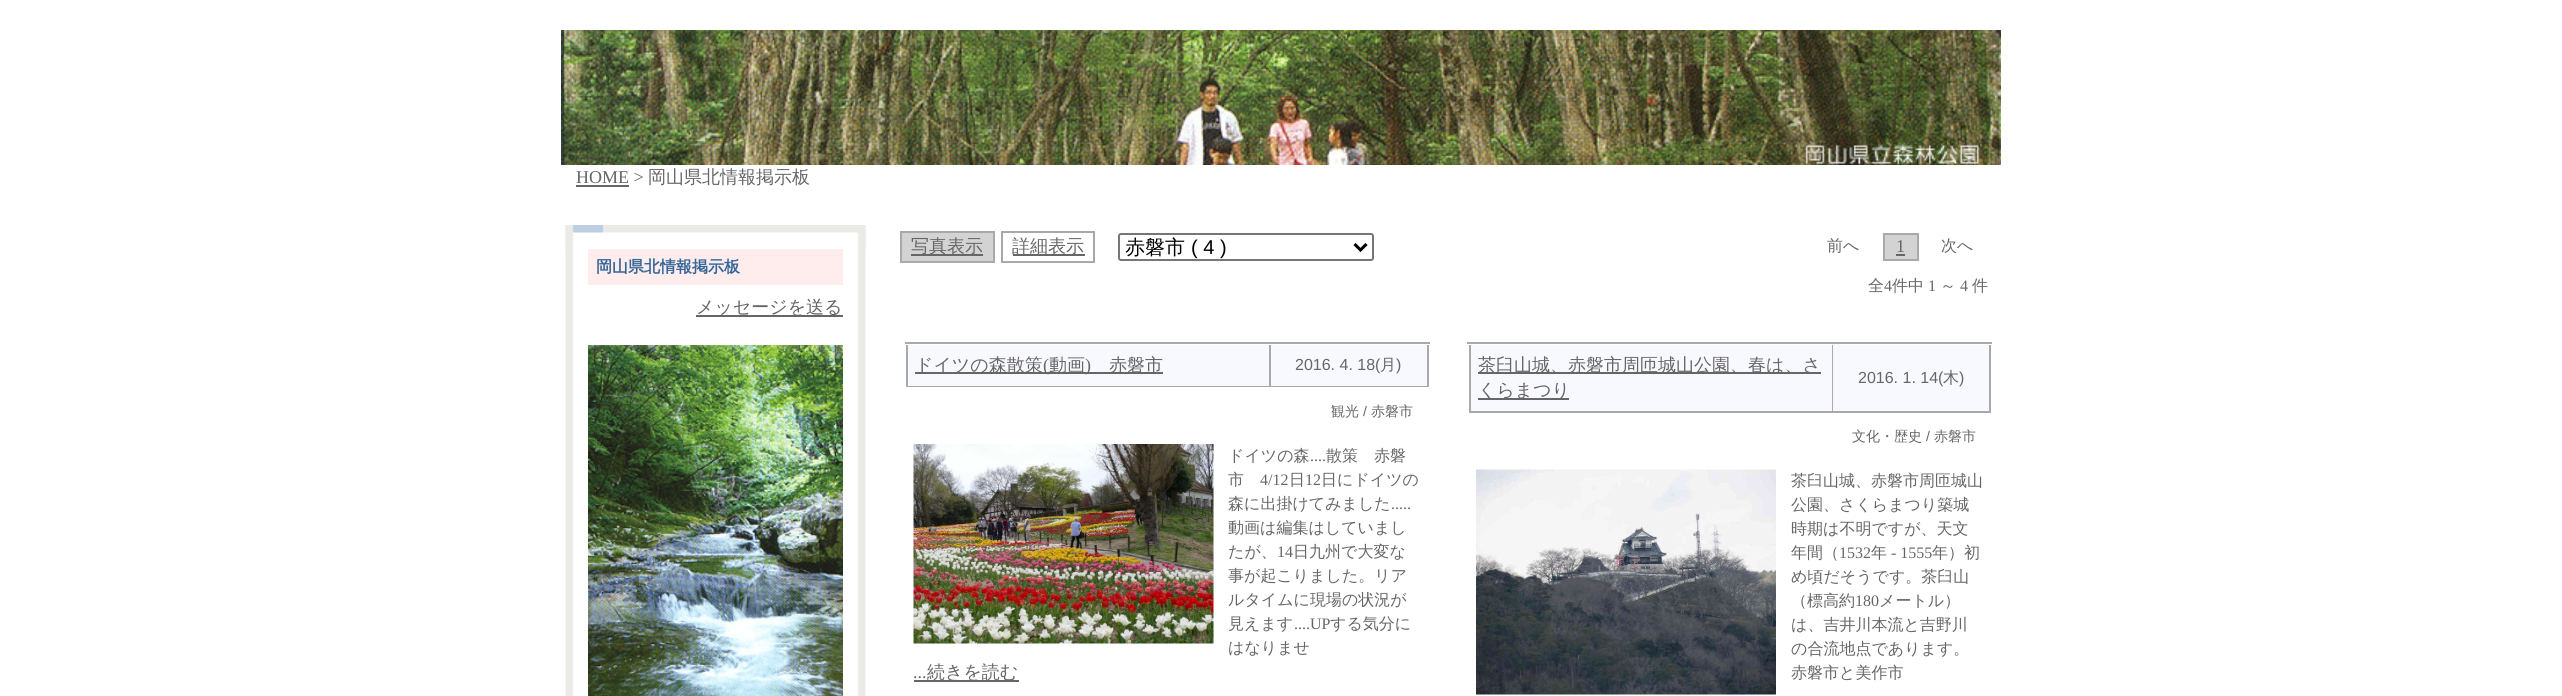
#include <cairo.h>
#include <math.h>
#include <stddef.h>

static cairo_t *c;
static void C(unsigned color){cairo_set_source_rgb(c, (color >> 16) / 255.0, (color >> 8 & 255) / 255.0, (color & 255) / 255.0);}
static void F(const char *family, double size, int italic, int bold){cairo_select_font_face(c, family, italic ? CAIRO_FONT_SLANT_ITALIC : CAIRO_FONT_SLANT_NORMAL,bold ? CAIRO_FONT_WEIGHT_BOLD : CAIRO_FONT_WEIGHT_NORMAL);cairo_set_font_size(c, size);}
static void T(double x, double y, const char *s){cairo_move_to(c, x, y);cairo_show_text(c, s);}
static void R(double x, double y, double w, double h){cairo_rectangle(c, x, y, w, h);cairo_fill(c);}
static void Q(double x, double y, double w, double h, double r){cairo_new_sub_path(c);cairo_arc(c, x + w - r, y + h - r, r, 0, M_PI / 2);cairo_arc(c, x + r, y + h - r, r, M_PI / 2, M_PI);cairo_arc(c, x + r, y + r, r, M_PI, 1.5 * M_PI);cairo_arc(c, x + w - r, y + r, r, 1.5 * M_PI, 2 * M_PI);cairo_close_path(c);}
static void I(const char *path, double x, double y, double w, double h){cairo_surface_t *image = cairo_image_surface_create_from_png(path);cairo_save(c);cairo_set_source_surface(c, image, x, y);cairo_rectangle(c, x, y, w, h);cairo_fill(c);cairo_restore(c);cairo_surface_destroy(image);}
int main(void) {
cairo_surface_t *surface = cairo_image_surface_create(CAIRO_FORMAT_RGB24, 2562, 696);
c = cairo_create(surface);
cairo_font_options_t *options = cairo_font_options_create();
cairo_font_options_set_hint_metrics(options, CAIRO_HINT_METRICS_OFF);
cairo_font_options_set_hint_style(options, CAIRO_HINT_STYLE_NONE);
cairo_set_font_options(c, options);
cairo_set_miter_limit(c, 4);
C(0xffffff);
cairo_paint(c);
I("1.png",561,30,1440,135);
F("Liberation Serif",18,0,0);
C(0x666666);
T(576,183,"HOME >");
R(576,185,53,2);
F("WenQuanYi Zen Hei Medium",18,0,0);
T(648,183,"岡山県北情報掲示板");
I("2.png",565,225,301,471);
I("3.png",565,225,301,24);
C(0xffecec);
R(588,249,255,36);
F("WenQuanYi Zen Hei",16,0,1);
C(0x336699);
T(596,272,"岡山県北情報掲示板");
C(0x666666);
R(696,315,147,2);
F("WenQuanYi Zen Hei Medium",18,0,0);
T(696,313,"メッセージを送る");
I("4.png",588,345,255,351);
C(0xd3d3d3);
cairo_rectangle(c,901,232,93,30);
cairo_fill_preserve(c);
C(0xa9a9a9);
cairo_stroke(c);
C(0x666666);
R(911,254,72,2);
T(911,252,"写真表示");
cairo_rectangle(c,1002,232,92,30);
C(0xa9a9a9);
cairo_stroke(c);
C(0x666666);
R(1013,254,72,2);
T(1012,252,"詳細表示");
Q(1119,234,254,26,2);
C(0x767676);
cairo_stroke(c);
cairo_new_path(c);
cairo_move_to(c,1354.5,244);
cairo_line_to(c,1360.5,250);
cairo_line_to(c,1366.5,244);
C(0x000000);
cairo_set_line_width(c,3);
cairo_stroke(c);
F("WenQuanYi Zen Hei Medium",20,0,0);
T(1125,254,"赤磐市");
F("Liberation Sans",20,0,0);
T(1191,254,"( 4 )");
F("WenQuanYi Zen Hei Medium",16,0,0);
C(0x666666);
T(1827,251,"前へ");
C(0xd3d3d3);
cairo_rectangle(c,1884,234,34,26);
cairo_fill_preserve(c);
C(0xa9a9a9);
cairo_set_line_width(c,2);
cairo_stroke(c);
F("Liberation Serif",18,0,0);
C(0x666666);
T(1896,252,"1");
R(1896,254,9,2);
F("WenQuanYi Zen Hei Medium",16,0,0);
T(1941,251,"次へ");
T(1868,291,"全");
F("Liberation Serif",16,0,0);
T(1884,291,"4");
F("WenQuanYi Zen Hei Medium",16,0,0);
T(1892,291,"件中");
F("Liberation Serif",16,0,0);
T(1928,291,"1");
F("WenQuanYi Zen Hei Medium",16,0,0);
T(1940,291,"～");
F("Liberation Serif",16,0,0);
T(1960,291,"4");
F("WenQuanYi Zen Hei Medium",16,0,0);
T(1972,291,"件");
C(0xa9a9a9);
R(905,342,525,2);
C(0xf8f8ff);
R(908,345,361,41);
C(0xa9a9a9);
R(1269,345,2,42);
R(906,386,365,1);
R(906,345,2,42);
C(0x666666);
R(915,372,248,2);
F("WenQuanYi Zen Hei Medium",18,0,0);
T(915,371,"ドイツの森散策");
F("Liberation Serif",18,0,0);
T(1043,371,"(");
F("WenQuanYi Zen Hei Medium",18,0,0);
T(1049,371,"動画");
F("Liberation Serif",18,0,0);
T(1085,371,")");
F("WenQuanYi Zen Hei Medium",18,0,0);
T(1109,371,"赤磐市");
C(0xf8f8ff);
R(1271,345,156,41);
C(0xa9a9a9);
R(1427,345,2,42);
R(1271,386,157,1);
F("Liberation Sans",16,0,0);
C(0x666666);
T(1295,370,"2016. 4. 18(");
F("WenQuanYi Zen Hei Medium",16,0,0);
T(1380,370,"月");
F("Liberation Sans",16,0,0);
T(1396,370,")");
F("WenQuanYi Zen Hei Medium",14,0,0);
T(1331,416,"観光");
F("Liberation Sans",14,0,0);
T(1363,416,"/");
F("WenQuanYi Zen Hei Medium",14,0,0);
T(1371,416,"赤磐市");
I("5.png",913,444,301,200);
F("WenQuanYi Zen Hei Medium",16,0,0);
T(1228,461,"ドイツの森");
F("Liberation Serif",16,0,0);
T(1310,461,"....");
F("WenQuanYi Zen Hei Medium",16,0,0);
T(1326,461,"散策　赤磐");
T(1228,485,"市");
F("Liberation Serif",16,0,0);
T(1260,485,"4/12");
F("WenQuanYi Zen Hei Medium",16,0,0);
T(1289,485,"日");
F("Liberation Serif",16,0,0);
T(1305,485,"12");
F("WenQuanYi Zen Hei Medium",16,0,0);
T(1321,485,"日にドイツの");
T(1228,509,"森に出掛けてみました");
F("Liberation Serif",16,0,0);
T(1391,509,".....");
F("WenQuanYi Zen Hei Medium",16,0,0);
T(1228,533,"動画は編集はしていまし");
T(1228,557,"たが、");
F("Liberation Serif",16,0,0);
T(1277,557,"14");
F("WenQuanYi Zen Hei Medium",16,0,0);
T(1293,557,"日九州で大変な");
T(1228,581,"事が起こりました。リア");
T(1228,605,"ルタイムに現場の状況が");
T(1228,629,"見えます");
F("Liberation Serif",16,0,0);
T(1294,629,"....UP");
F("WenQuanYi Zen Hei Medium",16,0,0);
T(1330,629,"する気分に");
T(1228,653,"はなりませ");
F("Liberation Serif",18,0,0);
T(913,678,"...");
R(914,680,105,2);
F("WenQuanYi Zen Hei Medium",18,0,0);
T(927,678,"続きを読む");
C(0xa9a9a9);
R(1467,342,525,2);
C(0xf8f8ff);
R(1471,345,361,66);
C(0xa9a9a9);
R(1832,345,1,68);
R(1469,411,364,2);
R(1469,345,2,68);
C(0x666666);
R(1478,372,343,2);
T(1478,371,"茶臼山城、赤磐市周匝城山公園、春は、さ");
R(1478,398,91,2);
T(1478,396,"くらまつり");
C(0xf8f8ff);
R(1833,345,156,66);
C(0xa9a9a9);
R(1989,345,2,68);
R(1833,411,158,2);
F("Liberation Sans",16,0,0);
C(0x666666);
T(1858,383,"2016. 1. 14(");
F("WenQuanYi Zen Hei Medium",16,0,0);
T(1943,383,"木");
F("Liberation Sans",16,0,0);
T(1959,383,")");
F("WenQuanYi Zen Hei Medium",14,0,0);
T(1852,441,"文化・歴史");
F("Liberation Sans",14,0,0);
T(1926,441,"/");
F("WenQuanYi Zen Hei Medium",14,0,0);
T(1934,441,"赤磐市");
I("6.png",1476,469,300,226);
F("WenQuanYi Zen Hei Medium",16,0,0);
T(1791,486,"茶臼山城、赤磐市周匝城山");
T(1791,510,"公園、さくらまつり築城");
T(1791,534,"時期は不明ですが、天文");
T(1791,558,"年間（");
F("Liberation Serif",16,0,0);
T(1839,558,"1532");
F("WenQuanYi Zen Hei Medium",16,0,0);
T(1871,558,"年");
F("Liberation Serif",16,0,0);
T(1891,558,"- 1555");
F("WenQuanYi Zen Hei Medium",16,0,0);
T(1932,558,"年）初");
T(1791,582,"め頃だそうです。茶臼山");
T(1791,606,"（標高約");
F("Liberation Serif",16,0,0);
T(1855,606,"180");
F("WenQuanYi Zen Hei Medium",16,0,0);
T(1879,606,"メートル）");
T(1791,630,"は、吉井川本流と吉野川");
T(1791,654,"の合流地点であります。");
T(1791,678,"赤磐市と美作市");
cairo_surface_write_to_png(surface, "o.png");
cairo_font_options_destroy(options);
cairo_destroy(c);
cairo_surface_destroy(surface);
return 0;
}
